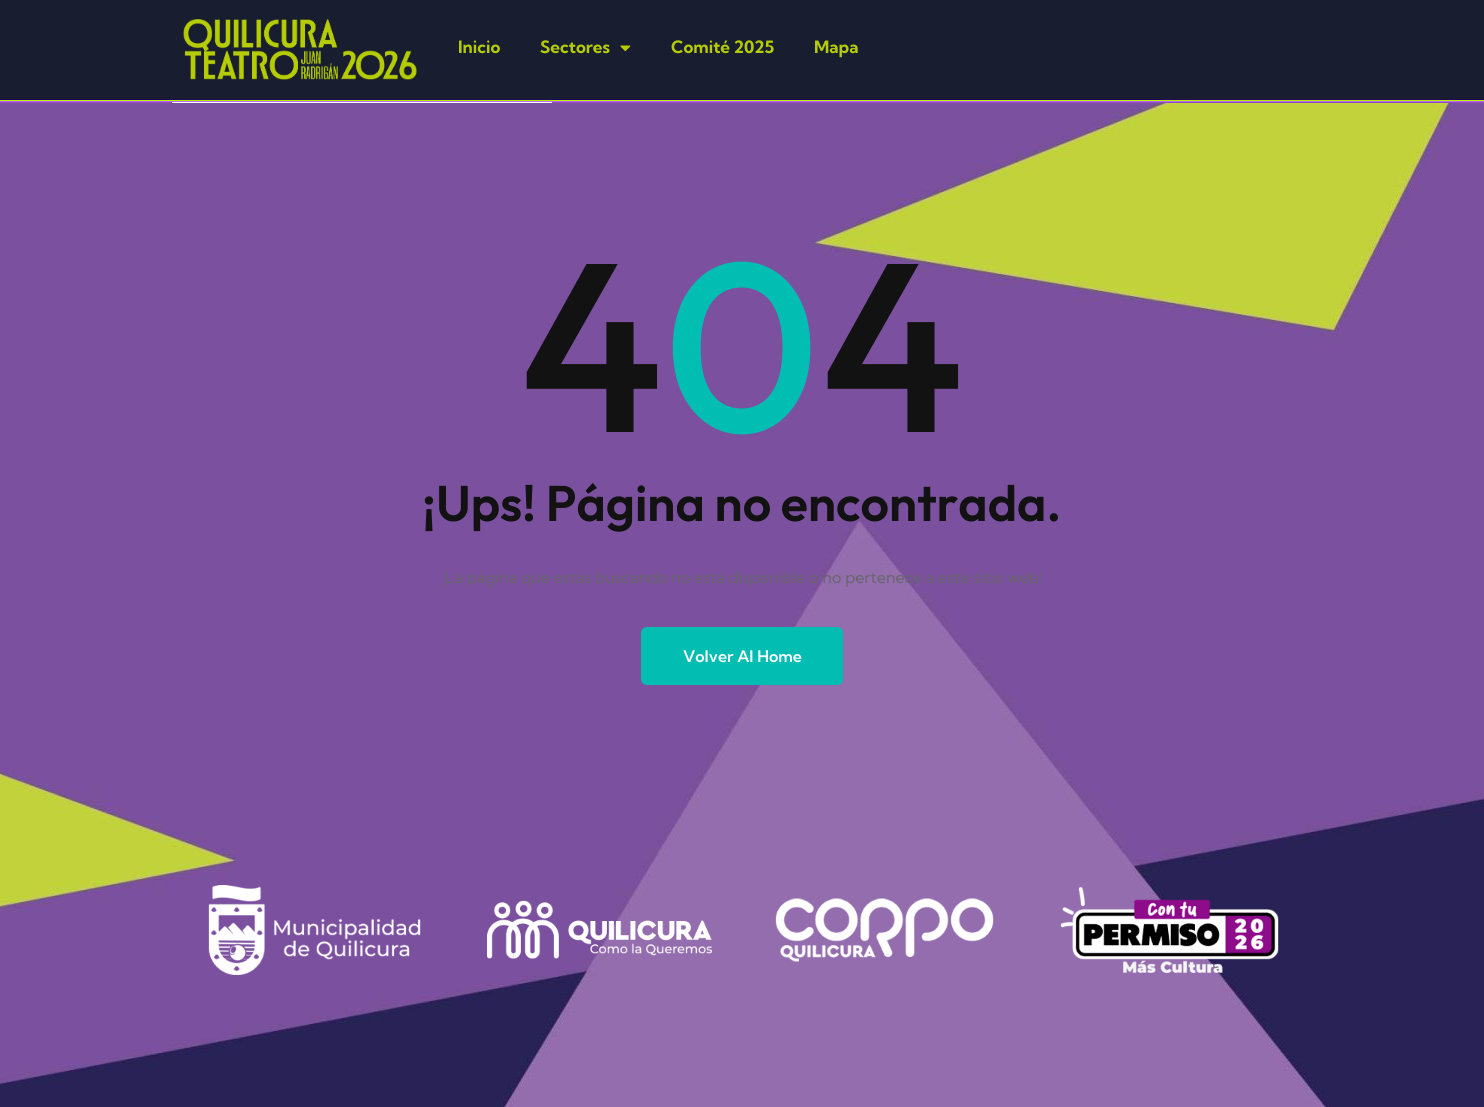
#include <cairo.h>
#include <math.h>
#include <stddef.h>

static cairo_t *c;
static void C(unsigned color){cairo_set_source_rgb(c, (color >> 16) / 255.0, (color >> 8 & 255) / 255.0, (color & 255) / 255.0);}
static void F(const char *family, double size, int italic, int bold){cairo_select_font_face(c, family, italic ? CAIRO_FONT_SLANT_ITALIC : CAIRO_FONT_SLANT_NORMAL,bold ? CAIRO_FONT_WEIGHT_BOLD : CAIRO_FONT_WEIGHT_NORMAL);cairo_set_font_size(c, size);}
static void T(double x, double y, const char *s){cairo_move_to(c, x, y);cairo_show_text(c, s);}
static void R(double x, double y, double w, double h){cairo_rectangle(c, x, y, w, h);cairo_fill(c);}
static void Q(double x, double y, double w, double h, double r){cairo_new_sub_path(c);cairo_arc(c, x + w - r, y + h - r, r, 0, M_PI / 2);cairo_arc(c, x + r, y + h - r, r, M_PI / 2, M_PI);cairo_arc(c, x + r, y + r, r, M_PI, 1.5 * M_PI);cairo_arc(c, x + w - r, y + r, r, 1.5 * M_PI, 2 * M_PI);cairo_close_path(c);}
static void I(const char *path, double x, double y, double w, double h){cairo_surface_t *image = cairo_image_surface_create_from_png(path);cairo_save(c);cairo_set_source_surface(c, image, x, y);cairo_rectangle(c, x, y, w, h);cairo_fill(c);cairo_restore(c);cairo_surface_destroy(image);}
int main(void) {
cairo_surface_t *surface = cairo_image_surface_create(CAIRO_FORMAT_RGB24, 1484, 1107);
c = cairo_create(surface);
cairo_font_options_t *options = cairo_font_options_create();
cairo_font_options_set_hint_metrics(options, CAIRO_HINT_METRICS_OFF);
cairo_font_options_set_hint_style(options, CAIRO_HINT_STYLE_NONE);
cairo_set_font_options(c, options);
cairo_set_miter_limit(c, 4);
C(0xffffff);
cairo_paint(c);
I("1.png",0,103,1484,1004);
C(0x181e2f);
R(0,0,1484,99);
I("2.png",183,19,234,61);
F("Kumbh Sans",17,0,1);
C(0xb5cc04);
T(458,53,"Inicio");
T(540,53,"Sectores");
I("3.png",620,45,11,7);
T(671,53,"Comité 2025");
T(814,53,"Mapa");
C(0x23055b);
R(0,99,1484,1);
C(0xaff700);
R(0,100,1484,1);
C(0xbc66ed);
R(0,101,1484,1);
C(0x914cc1);
R(0,102,1484,1);
C(0xffffff);
R(172,102,380,1);
F("Outfit Medium",240,0,0);
C(0x121212);
T(520,432,"4");
C(0x01bdb2);
T(663,432,"0");
C(0x121212);
T(821,432,"4");
F("Outfit SemiBold",50,0,0);
T(422,521,"¡Ups! Página no encontrada.");
F("Kumbh Sans",16,0,0);
C(0x666667);
T(442,583,"¡La página que estás buscando no está disponible o no pertenece a este sitio web!");
C(0x01bdb2);
Q(641,627,202,58,6);
cairo_fill(c);
F("Kumbh Sans SemiBold",16,0,0);
C(0xffffff);
T(683,662,"Volver Al Home");
I("4.png",208,885,213,90);
I("5.png",487,900,225,59);
I("6.png",775,898,219,64);
I("7.png",1060,887,219,86);
cairo_surface_write_to_png(surface, "o.png");
cairo_font_options_destroy(options);
cairo_destroy(c);
cairo_surface_destroy(surface);
return 0;
}
